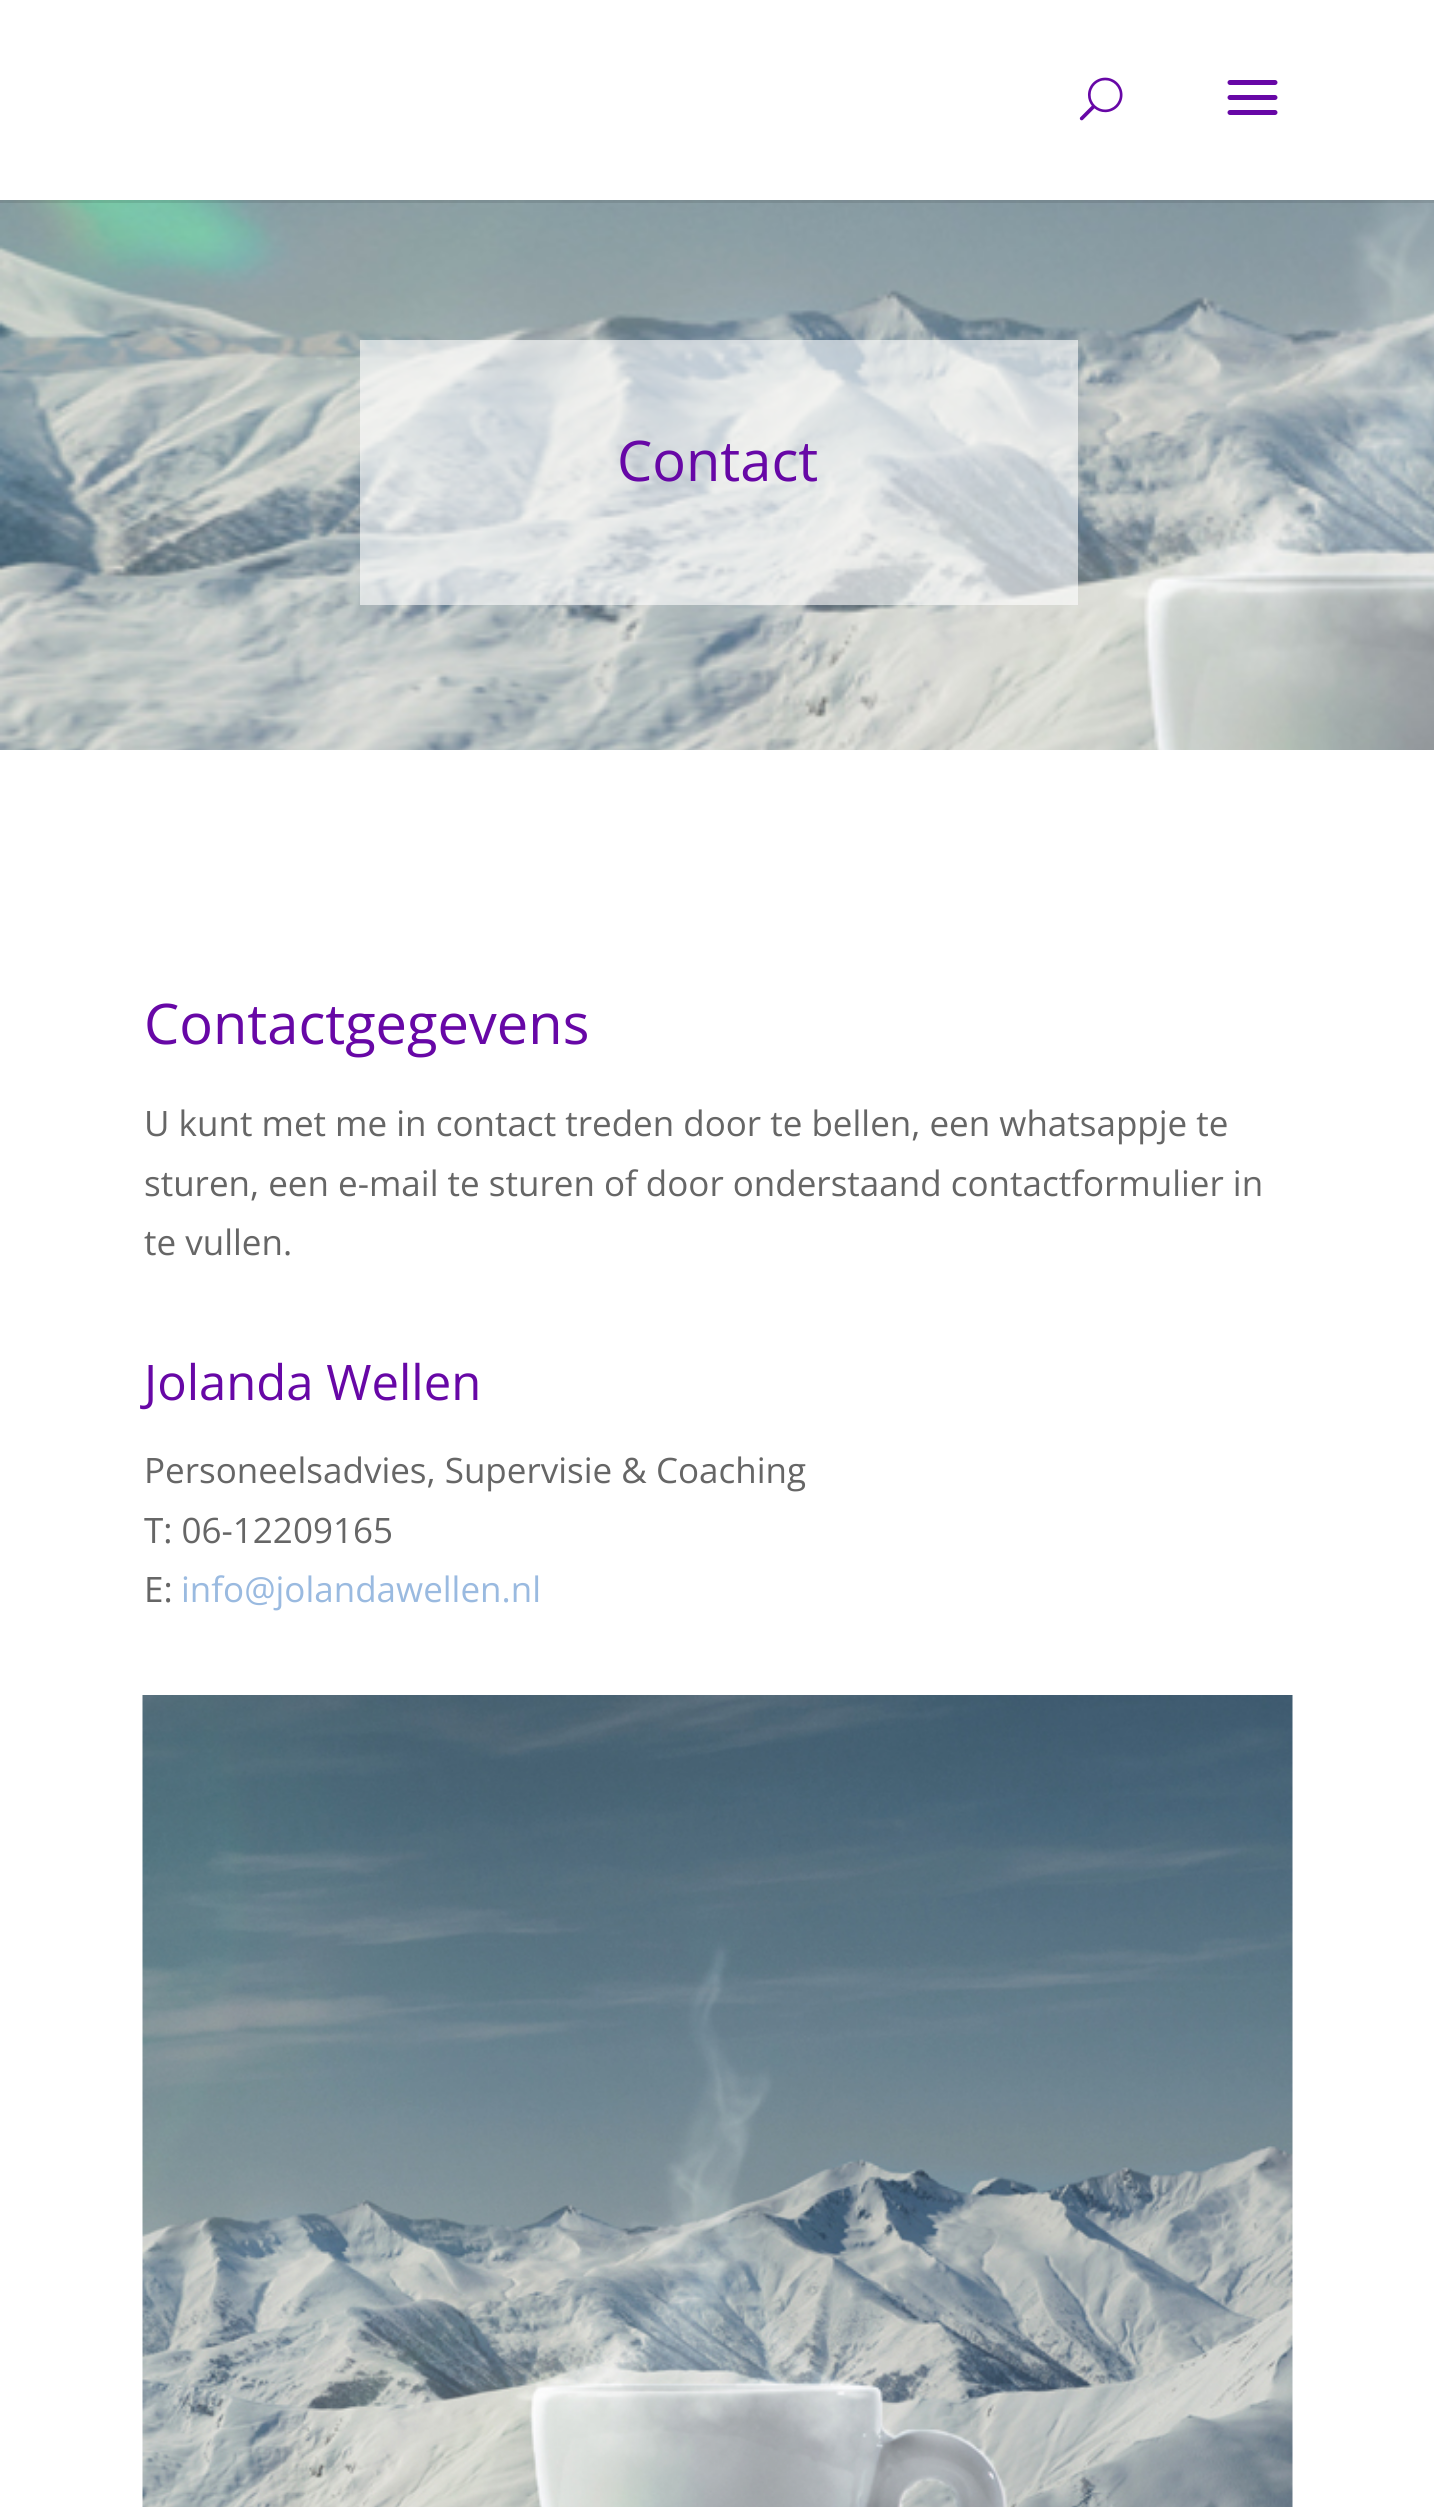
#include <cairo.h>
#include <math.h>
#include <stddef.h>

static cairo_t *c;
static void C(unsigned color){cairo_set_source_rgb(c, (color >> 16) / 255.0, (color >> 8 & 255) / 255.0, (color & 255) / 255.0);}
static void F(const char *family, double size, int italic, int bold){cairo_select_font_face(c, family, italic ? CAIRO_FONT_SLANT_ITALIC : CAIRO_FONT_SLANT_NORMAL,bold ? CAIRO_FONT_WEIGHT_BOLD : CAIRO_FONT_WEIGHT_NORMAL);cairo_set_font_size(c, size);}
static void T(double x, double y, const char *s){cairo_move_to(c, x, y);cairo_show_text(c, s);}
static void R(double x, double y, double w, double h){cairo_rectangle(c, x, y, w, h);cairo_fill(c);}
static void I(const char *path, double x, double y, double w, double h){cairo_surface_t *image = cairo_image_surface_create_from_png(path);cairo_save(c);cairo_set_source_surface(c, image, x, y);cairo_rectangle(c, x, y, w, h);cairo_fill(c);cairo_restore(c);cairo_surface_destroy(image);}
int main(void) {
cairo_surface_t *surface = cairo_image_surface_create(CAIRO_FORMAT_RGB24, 1434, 2507);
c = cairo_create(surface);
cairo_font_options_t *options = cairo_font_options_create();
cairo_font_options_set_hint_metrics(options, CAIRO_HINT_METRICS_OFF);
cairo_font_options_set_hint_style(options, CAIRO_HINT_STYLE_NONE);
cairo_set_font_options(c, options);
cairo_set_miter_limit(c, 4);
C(0xffffff);
cairo_paint(c);
I("3.png",0,200,1434,550);
cairo_set_source_rgba(c,0,0,0,0.1);
R(0,200,1434,3);
I("1.png",1079,77,44,44);
I("2.png",1227,80,51,35);
cairo_set_source_rgba(c,1,1,1,0.6);
R(360,340,718,265);
F("Open Sans",56,0,0);
C(0x6707a6);
T(617,481,"Contact");
T(144,1044,"Contactgegevens");
F("Open Sans",35,0,0);
C(0x666666);
T(144,1136,"U kunt met me in contact treden door te bellen, een whatsappje te");
T(144,1196,"sturen, een e-mail te sturen of door onderstaand contactformulier in");
T(144,1255,"te vullen.");
F("Open Sans",49,0,0);
C(0x6707a6);
T(144,1400,"Jolanda Wellen");
F("Open Sans",35,0,0);
C(0x666666);
T(144,1483,"Personeelsadvies, Supervisie & Coaching");
T(144,1543,"T: 06-12209165");
T(144,1602,"E:");
C(0x9abae0);
T(181,1602,"info@jolandawellen.nl");
I("4.png",142,1695,1151,812);
cairo_surface_write_to_png(surface, "o.png");
cairo_font_options_destroy(options);
cairo_destroy(c);
cairo_surface_destroy(surface);
return 0;
}
